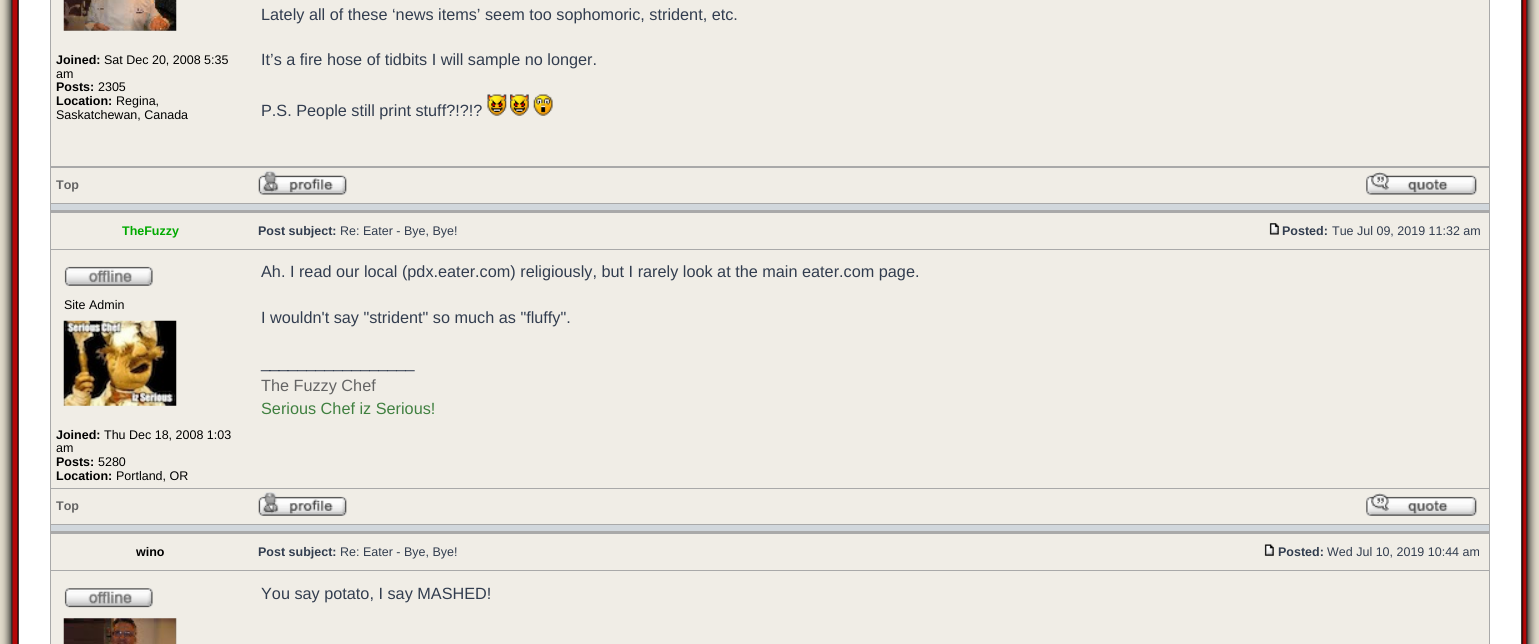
#include <cairo.h>
#include <math.h>
#include <stddef.h>

static cairo_t *c;
static void C(unsigned color){cairo_set_source_rgb(c, (color >> 16) / 255.0, (color >> 8 & 255) / 255.0, (color & 255) / 255.0);}
static void F(const char *family, double size, int italic, int bold){cairo_select_font_face(c, family, italic ? CAIRO_FONT_SLANT_ITALIC : CAIRO_FONT_SLANT_NORMAL,bold ? CAIRO_FONT_WEIGHT_BOLD : CAIRO_FONT_WEIGHT_NORMAL);cairo_set_font_size(c, size);}
static void T(double x, double y, const char *s){cairo_move_to(c, x, y);cairo_show_text(c, s);}
static void R(double x, double y, double w, double h){cairo_rectangle(c, x, y, w, h);cairo_fill(c);}
static void I(const char *path, double x, double y, double w, double h){cairo_surface_t *image = cairo_image_surface_create_from_png(path);cairo_save(c);cairo_set_source_surface(c, image, x, y);cairo_rectangle(c, x, y, w, h);cairo_fill(c);cairo_restore(c);cairo_surface_destroy(image);}
int main(void) {
cairo_surface_t *surface = cairo_image_surface_create(CAIRO_FORMAT_RGB24, 1539, 644);
c = cairo_create(surface);
cairo_font_options_t *options = cairo_font_options_create();
cairo_font_options_set_hint_metrics(options, CAIRO_HINT_METRICS_OFF);
cairo_font_options_set_hint_style(options, CAIRO_HINT_STYLE_NONE);
cairo_set_font_options(c, options);
cairo_set_miter_limit(c, 4);
C(0xffffff);
cairo_paint(c);
I("1.png",0,0,19,644);
C(0xa9a9a9);
R(50,0,1440,644);
C(0xf0ede6);
R(51,0,1438,166);
I("2.png",63,0,114,31);
F("Liberation Sans",12.5,0,1);
C(0x000000);
T(56,64,"Joined:");
F("Liberation Sans",12.5,0,0);
T(104,64,"Sat Dec 20, 2008 5:35");
T(56,78,"am");
F("Liberation Sans",12.5,0,1);
T(56,91,"Posts:");
F("Liberation Sans",12.5,0,0);
T(98,91,"2305");
F("Liberation Sans",12.5,0,1);
T(56,105,"Location:");
F("Liberation Sans",12.5,0,0);
T(116,105,"Regina,");
T(56,119,"Saskatchewan, Canada");
F("Liberation Sans",16.25,0,0);
C(0x323d4f);
T(261,20,"Lately all of these ‘news items’ seem too sophomoric, strident, etc.");
T(261,65,"It’s a fire hose of tidbits I will sample no longer.");
T(261,116,"P.S. People still print stuff?!?!?");
I("3.png",487,94,20,22);
I("4.png",510,94,19,22);
I("5.png",533,94,20,22);
C(0xf0ede6);
R(51,168,1438,35);
F("Liberation Sans",12.5,0,1);
C(0x646464);
T(56,189,"Top");
I("6.png",258,170,89,25);
I("7.png",1366,172,111,23);
C(0xd1d7dc);
R(51,204,1438,6);
C(0xf0ede6);
R(51,213,1438,36);
C(0x00aa00);
T(122,235,"TheFuzzy");
C(0x323d4f);
T(258,235,"Post subject:");
F("Liberation Sans",12.5,0,0);
T(340,235,"Re: Eater - Bye, Bye!");
I("8.png",1269,223,10,12);
F("Liberation Sans",12.5,0,1);
T(1282,235,"Posted:");
F("Liberation Sans",12.5,0,0);
T(1332,235,"Tue Jul 09, 2019 11:32 am");
C(0xf0ede6);
R(51,250,1438,238);
I("9.png",64,266,89,20);
C(0x000000);
T(64,309,"Site Admin");
I("10.png",63,320,114,86);
F("Liberation Sans",12.5,0,1);
T(56,439,"Joined:");
F("Liberation Sans",12.5,0,0);
T(104,439,"Thu Dec 18, 2008 1:03");
T(56,452,"am");
F("Liberation Sans",12.5,0,1);
T(56,466,"Posts:");
F("Liberation Sans",12.5,0,0);
T(98,466,"5280");
F("Liberation Sans",12.5,0,1);
T(56,480,"Location:");
F("Liberation Sans",12.5,0,0);
T(116,480,"Portland, OR");
F("Liberation Sans",16.25,0,0);
C(0x323d4f);
T(261,277,"Ah. I read our local (pdx.eater.com) religiously, but I rarely look at the main eater.com page.");
T(261,323,"I wouldn't say \"strident\" so much as \"fluffy\".");
T(261,368,"_________________");
C(0x646464);
T(261,391,"The Fuzzy Chef");
C(0x408040);
T(261,414,"Serious Chef iz Serious!");
C(0xf0ede6);
R(51,489,1438,35);
F("Liberation Sans",12.5,0,1);
C(0x646464);
T(56,510,"Top");
I("11.png",258,492,89,24);
I("12.png",1366,493,111,23);
C(0xd1d7dc);
R(51,525,1438,6);
C(0xf0ede6);
R(51,534,1438,36);
C(0x000000);
T(136,556,"wino");
C(0x323d4f);
T(258,556,"Post subject:");
F("Liberation Sans",12.5,0,0);
T(340,556,"Re: Eater - Bye, Bye!");
I("13.png",1264,544,10,12);
F("Liberation Sans",12.5,0,1);
T(1278,556,"Posted:");
F("Liberation Sans",12.5,0,0);
T(1327,556,"Wed Jul 10, 2019 10:44 am");
C(0xf0ede6);
R(51,571,1438,73);
I("14.png",64,588,89,20);
I("15.png",63,618,114,26);
F("Liberation Sans",16.25,0,0);
C(0x323d4f);
T(261,599,"You say potato, I say MASHED!");
I("16.png",1521,0,18,644);
cairo_surface_write_to_png(surface, "o.png");
cairo_font_options_destroy(options);
cairo_destroy(c);
cairo_surface_destroy(surface);
return 0;
}
